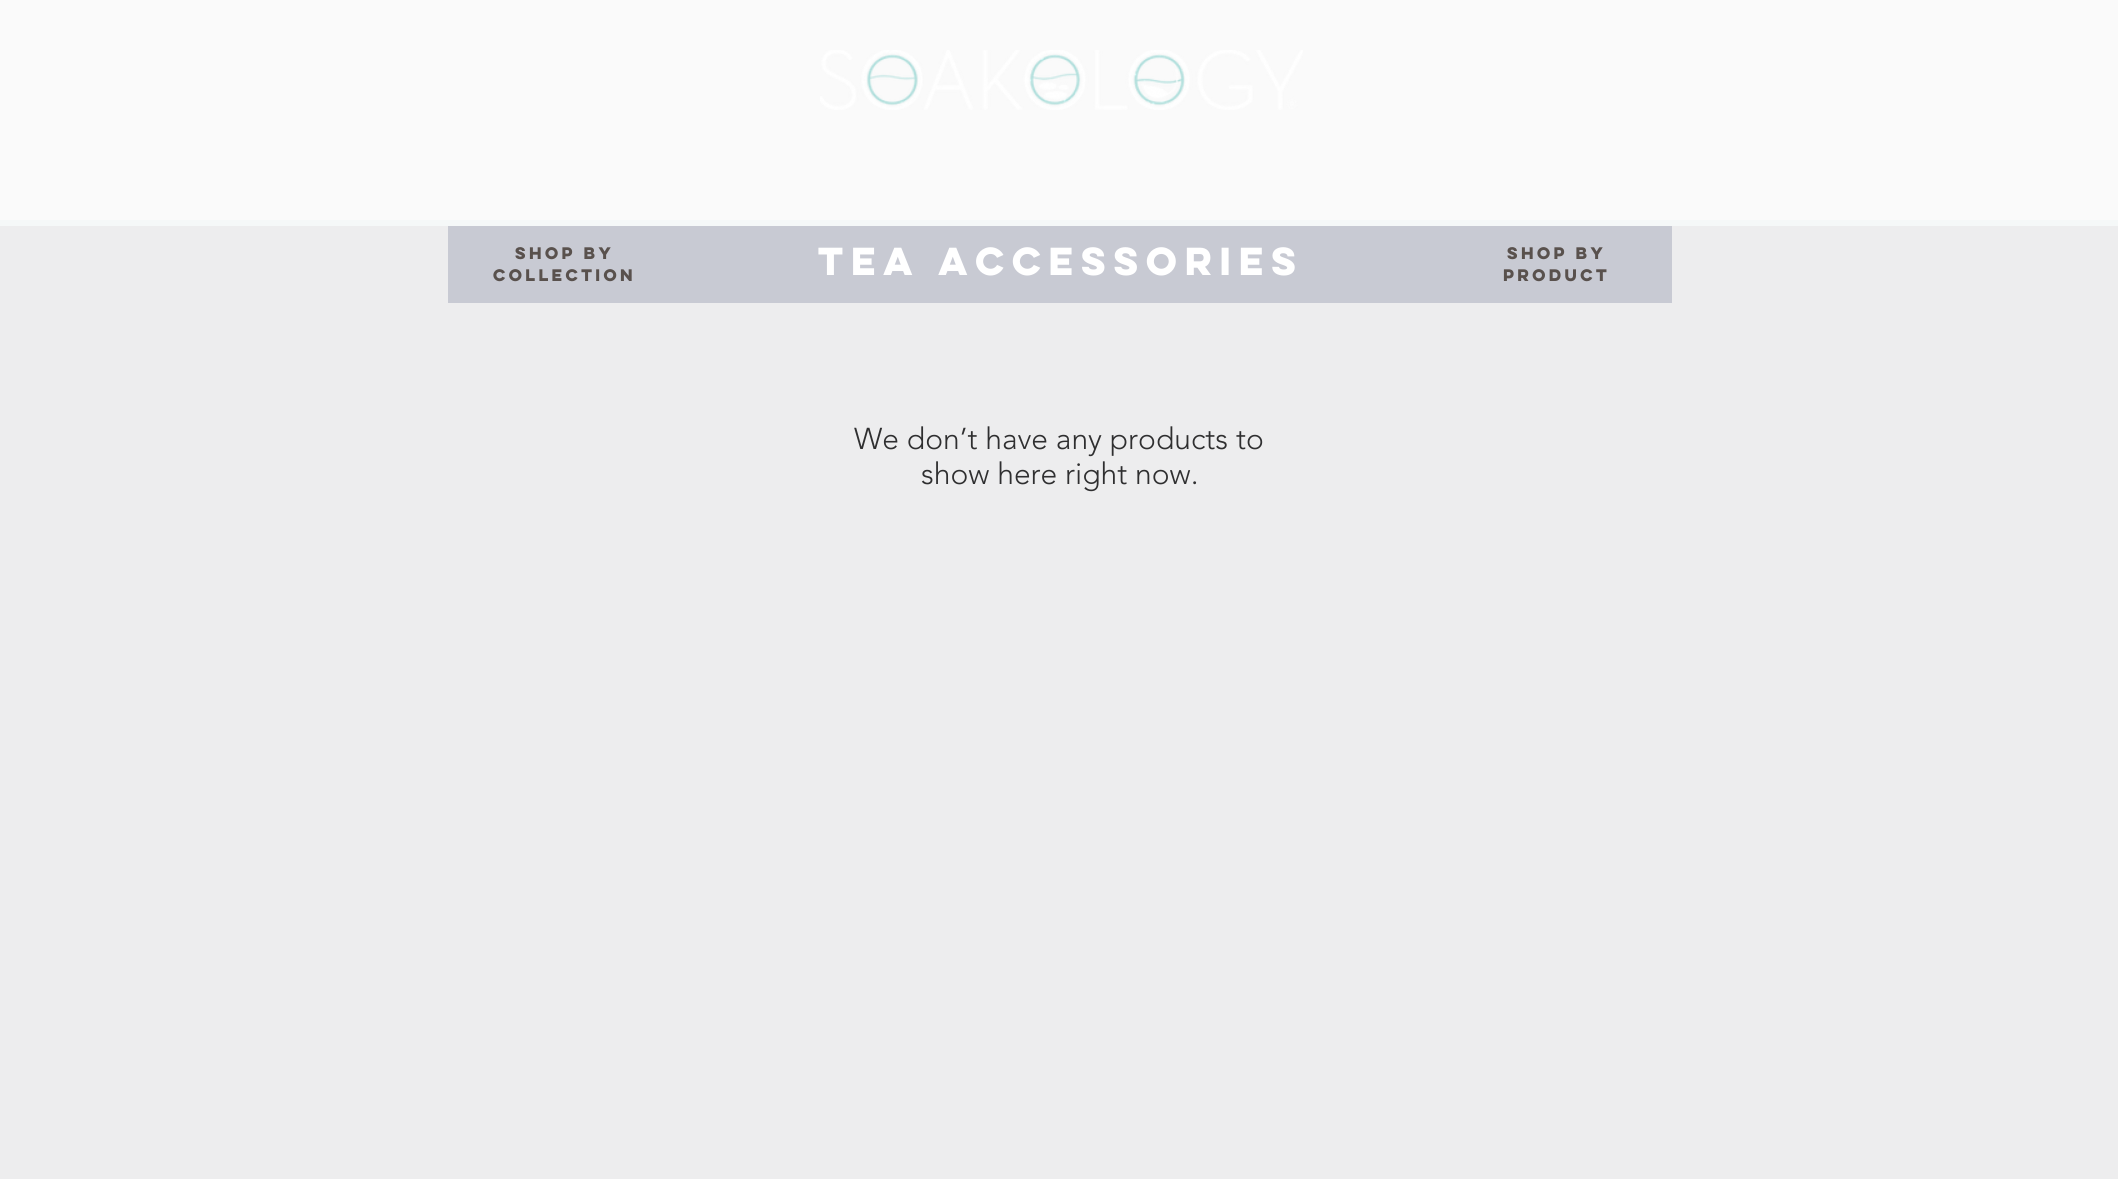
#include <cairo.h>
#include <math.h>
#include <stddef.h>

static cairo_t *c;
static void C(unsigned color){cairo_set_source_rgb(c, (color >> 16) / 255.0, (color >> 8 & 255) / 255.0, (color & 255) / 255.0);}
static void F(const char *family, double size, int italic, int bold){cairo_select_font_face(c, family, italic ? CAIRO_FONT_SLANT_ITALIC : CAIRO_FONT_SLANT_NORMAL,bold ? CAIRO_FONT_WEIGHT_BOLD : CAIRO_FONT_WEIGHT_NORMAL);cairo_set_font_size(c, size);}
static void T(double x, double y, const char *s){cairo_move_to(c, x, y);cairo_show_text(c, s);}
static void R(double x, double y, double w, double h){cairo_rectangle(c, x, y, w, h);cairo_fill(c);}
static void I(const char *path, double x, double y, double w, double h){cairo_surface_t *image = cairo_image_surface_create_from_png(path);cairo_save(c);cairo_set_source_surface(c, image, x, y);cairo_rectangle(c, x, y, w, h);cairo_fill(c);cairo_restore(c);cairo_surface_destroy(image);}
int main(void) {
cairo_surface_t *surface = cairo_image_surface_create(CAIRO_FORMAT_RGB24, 2118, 1179);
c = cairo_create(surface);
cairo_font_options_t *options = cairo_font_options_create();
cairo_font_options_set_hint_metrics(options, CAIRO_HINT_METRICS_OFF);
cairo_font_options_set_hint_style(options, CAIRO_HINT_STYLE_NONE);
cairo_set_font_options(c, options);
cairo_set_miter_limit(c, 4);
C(0xededee);
cairo_paint(c);
C(0xfafafa);
R(0,0,2118,220);
I("1.png",820,50,483,60);
C(0xf5f8f8);
R(0,220,2118,6);
C(0xc8cad3);
R(448,226,1224,77);
F("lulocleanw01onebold",15,0,1);
C(0x59514d);
T(515,259,"SHOP BY");
T(493,281,"COLLECTION");
F("lulocleanw01onebold",35,0,1);
C(0xffffff);
T(818,275,"TEA ACCESSORIES");
F("lulocleanw01onebold",15,0,1);
C(0x59514d);
T(1507,259,"SHOP BY");
T(1503,281,"PRODUCT");
F("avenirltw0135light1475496 Light",30,0,0);
C(0x2f2f30);
T(854,449,"We don’t have any products to");
T(921,484,"show here right now.");
cairo_surface_write_to_png(surface, "o.png");
cairo_font_options_destroy(options);
cairo_destroy(c);
cairo_surface_destroy(surface);
return 0;
}
